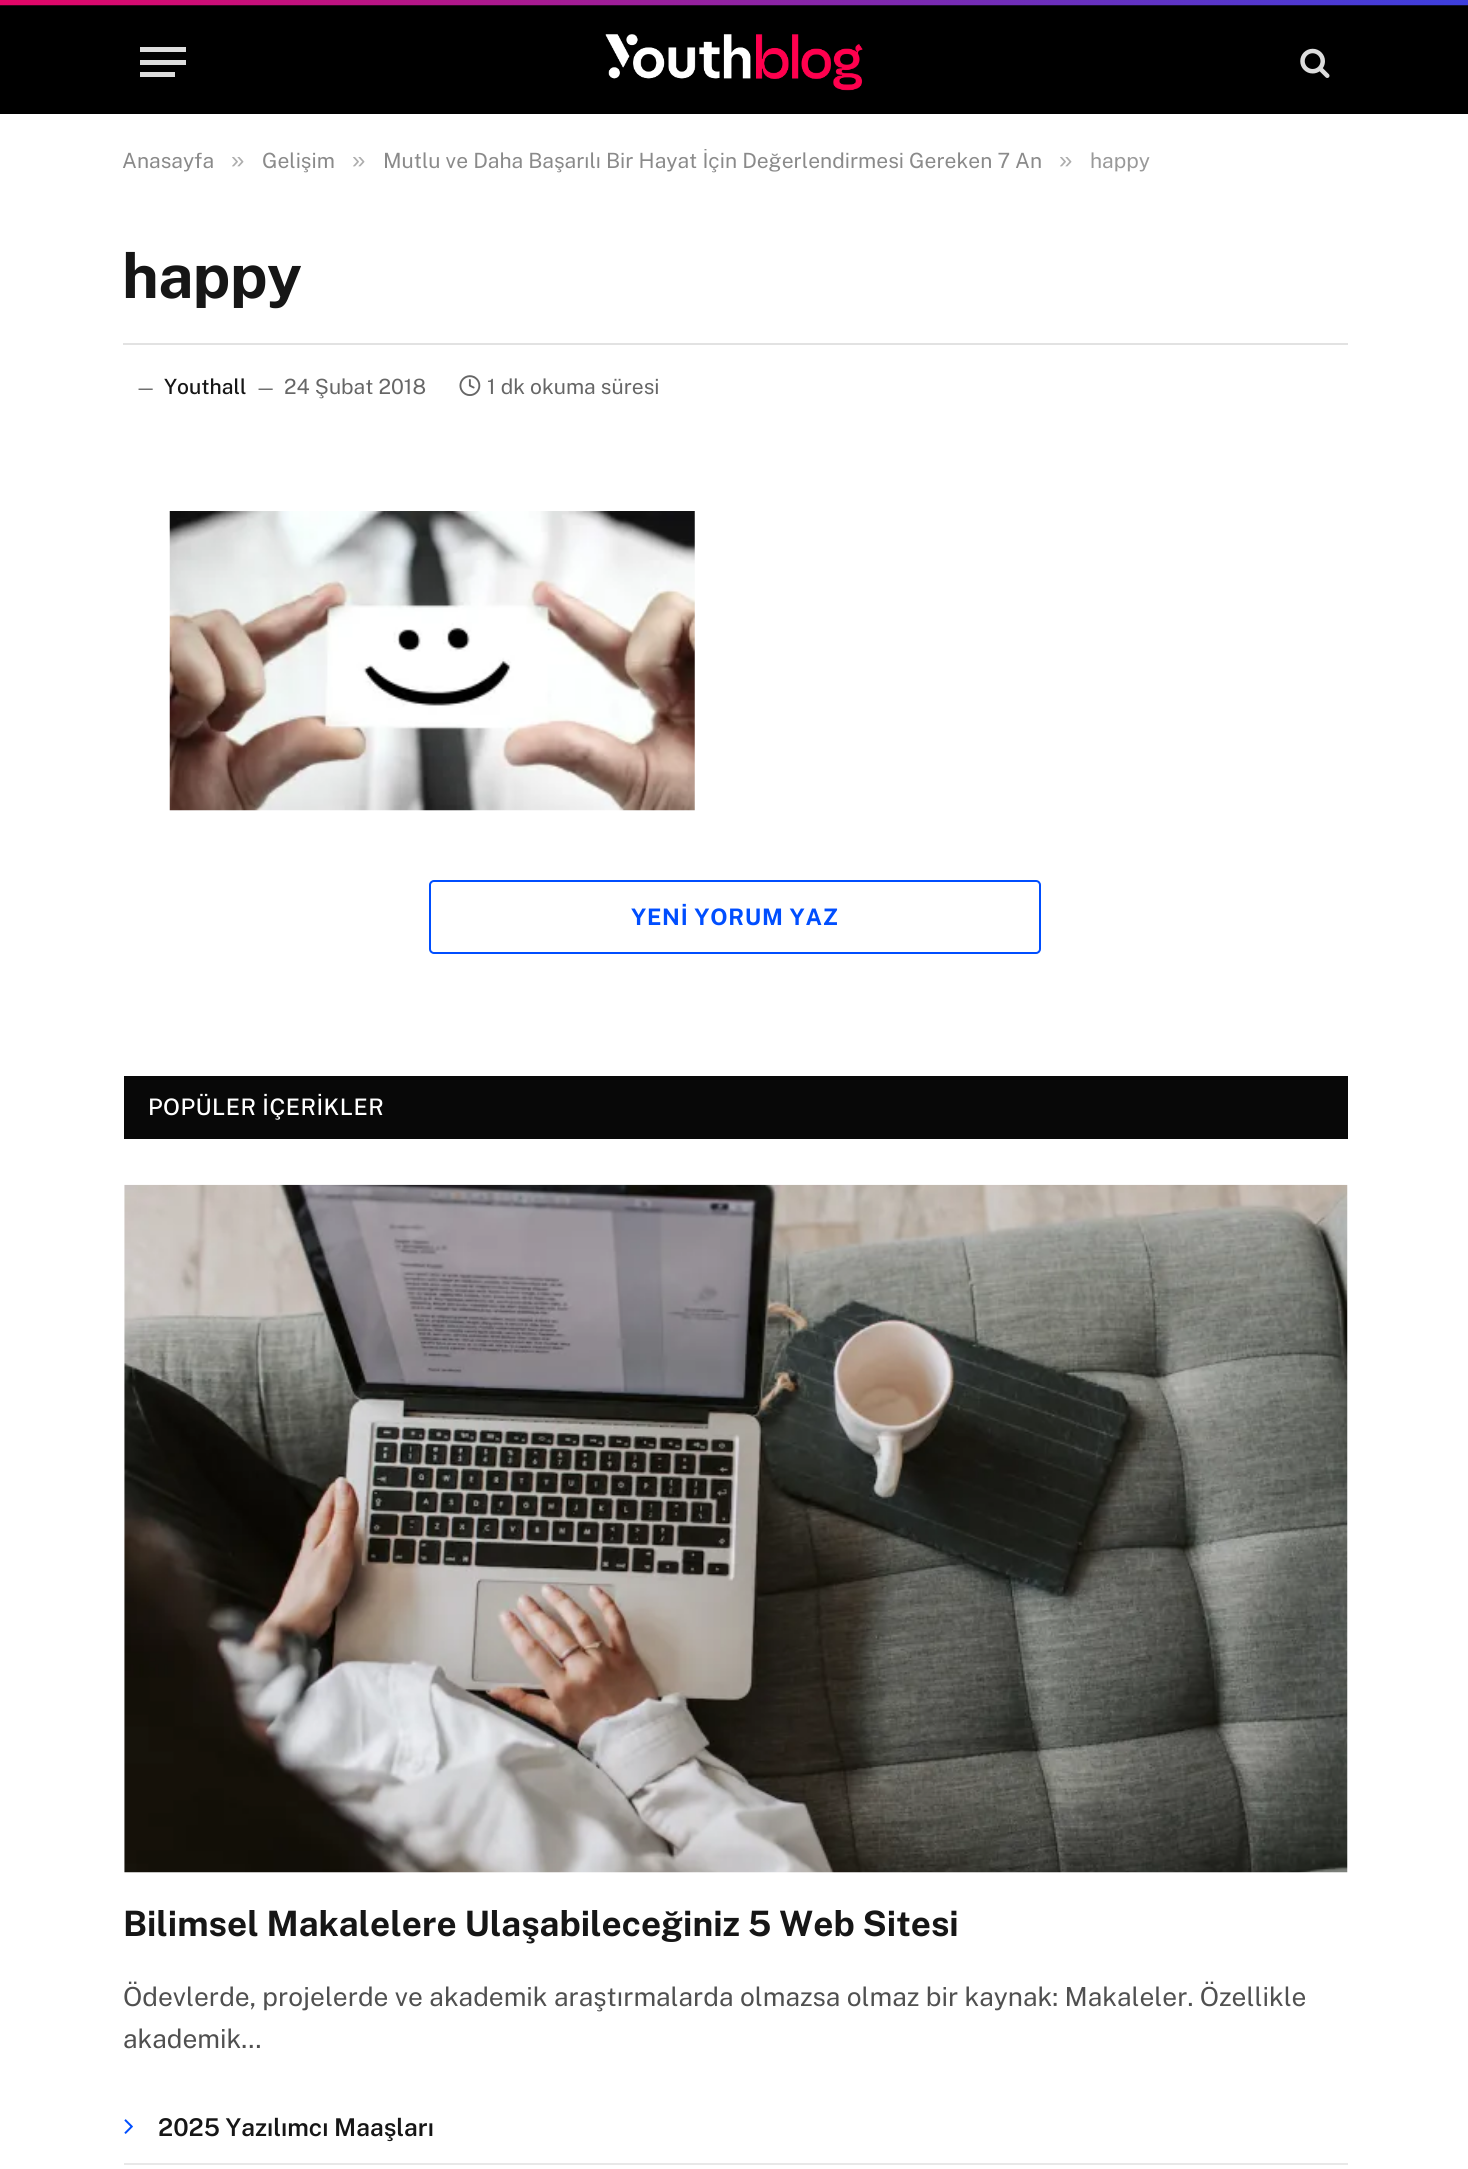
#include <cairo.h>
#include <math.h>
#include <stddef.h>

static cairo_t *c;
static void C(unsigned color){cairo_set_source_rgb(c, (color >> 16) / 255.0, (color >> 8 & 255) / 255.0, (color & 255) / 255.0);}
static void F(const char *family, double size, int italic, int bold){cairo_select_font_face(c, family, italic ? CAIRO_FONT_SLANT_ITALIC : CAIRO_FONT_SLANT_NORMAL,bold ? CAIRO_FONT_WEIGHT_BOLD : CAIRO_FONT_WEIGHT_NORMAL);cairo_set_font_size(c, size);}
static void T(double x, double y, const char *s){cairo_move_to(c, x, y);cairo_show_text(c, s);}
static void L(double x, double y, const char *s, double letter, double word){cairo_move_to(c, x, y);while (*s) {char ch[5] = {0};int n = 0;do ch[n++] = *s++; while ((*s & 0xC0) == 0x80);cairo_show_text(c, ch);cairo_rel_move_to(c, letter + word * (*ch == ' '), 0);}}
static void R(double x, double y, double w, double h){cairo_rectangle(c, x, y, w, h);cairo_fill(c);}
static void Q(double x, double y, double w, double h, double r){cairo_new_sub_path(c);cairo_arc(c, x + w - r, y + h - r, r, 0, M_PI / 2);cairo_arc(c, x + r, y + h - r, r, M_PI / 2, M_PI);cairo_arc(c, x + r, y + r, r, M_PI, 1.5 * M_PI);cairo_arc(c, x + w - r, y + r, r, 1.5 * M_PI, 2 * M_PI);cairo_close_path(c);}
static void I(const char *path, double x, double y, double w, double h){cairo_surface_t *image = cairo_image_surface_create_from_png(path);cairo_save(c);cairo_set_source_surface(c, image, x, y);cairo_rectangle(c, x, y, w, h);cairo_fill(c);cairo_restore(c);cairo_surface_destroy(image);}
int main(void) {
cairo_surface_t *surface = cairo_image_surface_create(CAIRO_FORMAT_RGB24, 1468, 2169);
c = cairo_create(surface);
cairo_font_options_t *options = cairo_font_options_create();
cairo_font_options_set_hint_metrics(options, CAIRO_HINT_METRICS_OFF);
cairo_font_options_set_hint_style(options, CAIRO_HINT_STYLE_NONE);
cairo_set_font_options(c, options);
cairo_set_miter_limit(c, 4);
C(0xffffff);
cairo_paint(c);
C(0x000000);
R(0,5,1468,109);
I("1.png",0,0,1468,6);
C(0xdddddd);
R(140,72,35,5);
R(140,47,46,5);
R(140,60,46,5);
I("2.png",605,34,258,57);
I("3.png",1300,48,30,30);
F("Public Sans",21,0,0);
C(0x8a8a8a);
T(122,168,"Anasayfa");
F("Liberation Sans",24,0,0);
C(0xadadad);
T(231,168,"»");
F("Public Sans",21,0,0);
C(0x8a8a8a);
T(262,168,"Gelişim");
F("Liberation Sans",24,0,0);
C(0xadadad);
T(352,168,"»");
cairo_save(c);
cairo_rectangle(c,79,149,1312,24);
cairo_clip(c);
F("Public Sans",21,0,0);
C(0x8a8a8a);
T(383,168,"Mutlu ve Daha Başarılı Bir Hayat İçin Değerlendirmesi Gereken 7 An");
cairo_restore(c);
T(1059,168,"»");
F("Public Sans",21,0,0);
C(0x999999);
T(1090,168,"happy");
F("Public Sans",62,0,1);
C(0x161616);
L(122,298,"happy",-.5,0);
C(0xe2e2e2);
R(123,343,1225,2);
F("Public Sans",19,0,0);
C(0x666666);
T(135,394,"—");
F("Public Sans Medium",21,0,0);
C(0x161616);
T(164,394,"Youthall");
F("Public Sans",19,0,0);
C(0x666666);
T(255,394,"—");
F("Public Sans",21,0,0);
T(284,394,"24 Şubat 2018");
I("4.png",459,375,22,21);
T(487,394,"1 dk okuma süresi");
I("5.png",169,511,526,300);
Q(430,881,610,72,4);
C(0x004eff);
cairo_stroke(c);
F("Public Sans",22.75,0,1);
L(631,925,"YENİ YORUM YAZ",.75,0);
C(0x080808);
R(124,1076,1224,63);
F("Public Sans Medium",22.75,0,0);
C(0xffffff);
L(148,1115,"POPÜLER İÇERİKLER",.5,0);
I("6.png",124,1184,1224,689);
F("Public Sans",35,0,1);
C(0x161616);
T(123,1936,"Bilimsel Makalelere Ulaşabileceğiniz 5 Web Sitesi");
F("Public Sans",26.25,0,0);
C(0x505050);
T(123,2006,"Ödevlerde, projelerde ve akademik araştırmalarda olmazsa olmaz bir kaynak: Makaleler. Özellikle");
T(123,2048,"akademik…");
I("7.png",124,2119,9,15);
F("Public Sans SemiBold",24.5,0,0);
C(0x161616);
T(158,2136,"2025 Yazılımcı Maaşları");
C(0xe8e8e8);
R(124,2163,1224,2);
cairo_surface_write_to_png(surface, "o.png");
cairo_font_options_destroy(options);
cairo_destroy(c);
cairo_surface_destroy(surface);
return 0;
}
